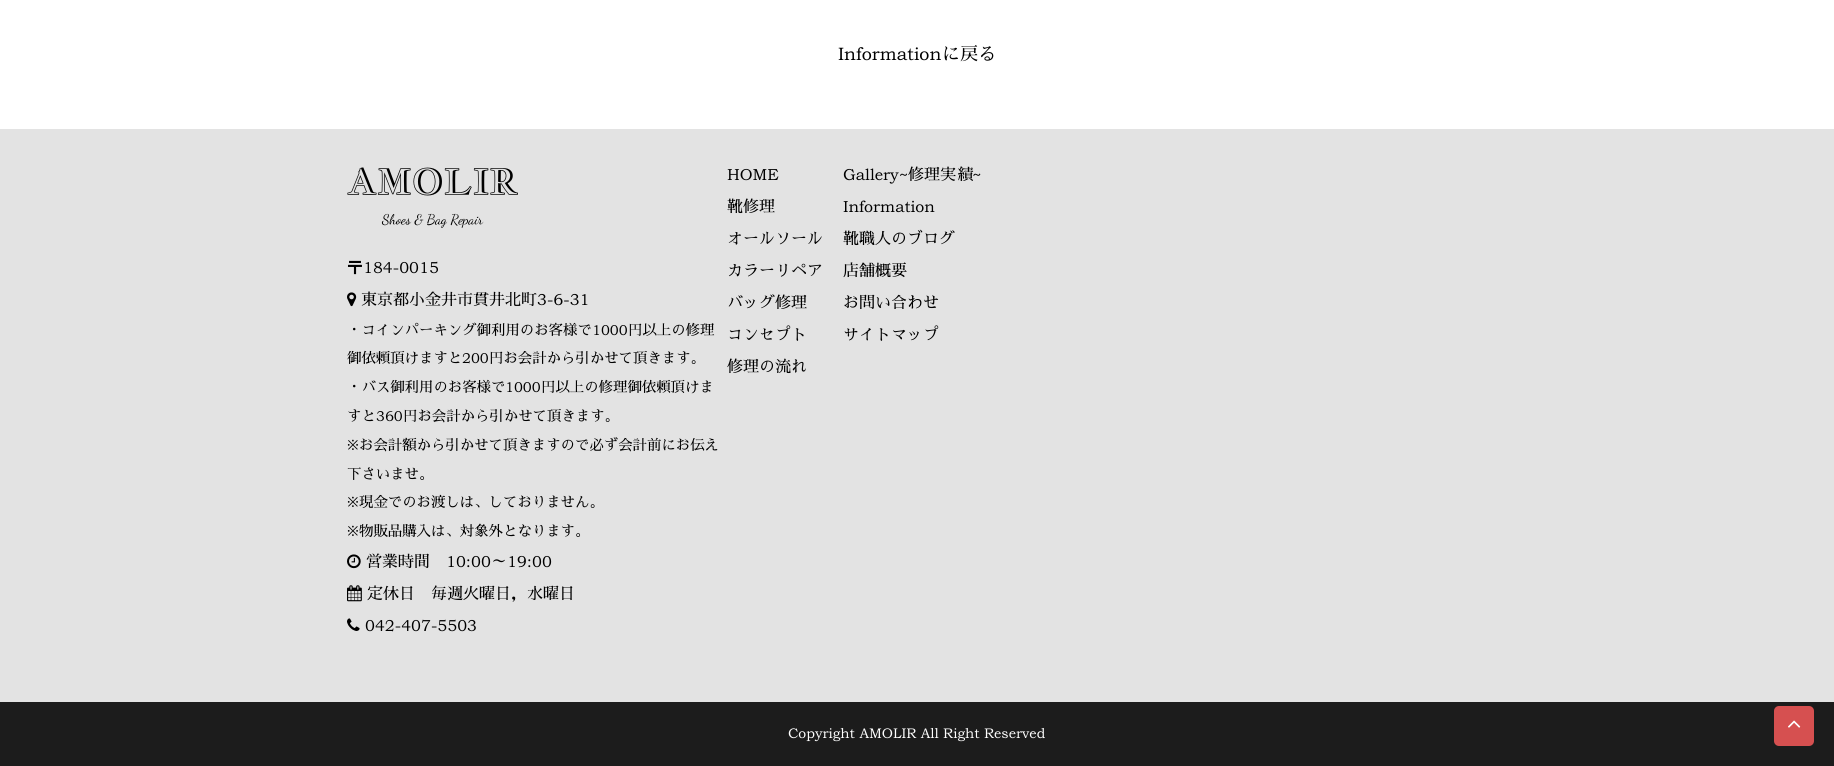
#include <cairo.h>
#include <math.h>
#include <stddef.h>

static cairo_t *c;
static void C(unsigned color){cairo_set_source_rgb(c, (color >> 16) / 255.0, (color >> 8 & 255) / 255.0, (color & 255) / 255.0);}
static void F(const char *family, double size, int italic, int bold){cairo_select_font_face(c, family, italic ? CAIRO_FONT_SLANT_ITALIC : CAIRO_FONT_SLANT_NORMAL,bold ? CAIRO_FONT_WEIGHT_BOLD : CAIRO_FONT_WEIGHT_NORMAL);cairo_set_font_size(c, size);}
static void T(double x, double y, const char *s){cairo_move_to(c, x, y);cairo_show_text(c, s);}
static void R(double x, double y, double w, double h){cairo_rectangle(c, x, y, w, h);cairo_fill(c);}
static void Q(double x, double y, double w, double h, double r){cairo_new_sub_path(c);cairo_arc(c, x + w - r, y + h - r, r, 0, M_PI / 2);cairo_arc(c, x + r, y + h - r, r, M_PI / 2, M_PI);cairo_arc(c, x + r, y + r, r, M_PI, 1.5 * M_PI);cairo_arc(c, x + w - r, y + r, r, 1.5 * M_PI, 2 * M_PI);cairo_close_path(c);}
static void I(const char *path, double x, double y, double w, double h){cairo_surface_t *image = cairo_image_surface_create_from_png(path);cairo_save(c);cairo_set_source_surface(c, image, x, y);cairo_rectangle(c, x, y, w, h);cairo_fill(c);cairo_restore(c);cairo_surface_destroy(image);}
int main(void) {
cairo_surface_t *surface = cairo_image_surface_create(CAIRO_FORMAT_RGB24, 1834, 766);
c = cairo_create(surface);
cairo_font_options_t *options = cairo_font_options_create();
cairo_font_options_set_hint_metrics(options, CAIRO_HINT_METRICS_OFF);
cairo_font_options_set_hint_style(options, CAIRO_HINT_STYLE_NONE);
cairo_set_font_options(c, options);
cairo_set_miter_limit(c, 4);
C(0xffffff);
cairo_paint(c);
F("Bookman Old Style",18,0,0);
C(0x000000);
T(838,60,"Information");
F("Sawarabi Mincho",18,0,0);
T(942,60,"に戻る");
C(0xe3e3e3);
R(0,129,1834,573);
F("Jacques Francois Shadow",35,0,0);
C(0x000000);
T(347,194,"AMOLIR");
F("Dancing Script",14,0,0);
T(382,224,"Shoes & Bag Repair");
F("Sawarabi Mincho",16,0,0);
T(347,273,"〒");
F("Bookman Old Style",16,0,0);
T(363,273,"184-0015");
I("1.png",347,292,10,15);
F("Sawarabi Mincho",16,0,0);
T(361,305,"東京都小金井市貫井北町");
F("Bookman Old Style",16,0,0);
T(537,305,"3-6-31");
F("Sawarabi Mincho",14.4,0,0);
T(347,335,"・コインパーキング御利用のお客様で");
F("Bookman Old Style",14.4,0,0);
T(592,335,"1000");
F("Sawarabi Mincho",14.4,0,0);
T(628,335,"円以上の修理");
T(347,363,"御依頼頂けますと");
F("Bookman Old Style",14.4,0,0);
T(462,363,"200");
F("Sawarabi Mincho",14.4,0,0);
T(489,363,"円お会計から引かせて頂きます。");
T(347,392,"・バス御利用のお客様で");
F("Bookman Old Style",14.4,0,0);
T(505,392,"1000");
F("Sawarabi Mincho",14.4,0,0);
T(541,392,"円以上の修理御依頼頂けま");
T(347,421,"すと");
F("Bookman Old Style",14.4,0,0);
T(376,421,"360");
F("Sawarabi Mincho",14.4,0,0);
T(403,421,"円お会計から引かせて頂きます。");
F("Noto Serif",14.4,0,0);
T(347,450,"※");
F("Sawarabi Mincho",14.4,0,0);
T(359,450,"お会計額から引かせて頂きますので必ず会計前にお伝え");
T(347,479,"下さいませ。");
F("Noto Serif",14.4,0,0);
T(347,507,"※");
F("Sawarabi Mincho",14.4,0,0);
T(359,507,"現金でのお渡しは、しておりません。");
F("Noto Serif",14.4,0,0);
T(347,536,"※");
F("Sawarabi Mincho",14.4,0,0);
T(359,536,"物販品購入は、対象外となります。");
I("2.png",347,554,14,15);
F("Sawarabi Mincho",16,0,0);
T(366,567,"営業時間");
F("Bookman Old Style",16,0,0);
T(446,567,"10:00");
F("Sawarabi Mincho",16,0,0);
T(491,567,"～");
F("Bookman Old Style",16,0,0);
T(507,567,"19:00");
I("3.png",347,585,15,17);
F("Sawarabi Mincho",16,0,0);
T(367,599,"定休日　毎週火曜日，水曜日");
I("4.png",347,618,13,13);
F("Bookman Old Style",16,0,0);
T(365,631,"042-407-5503");
T(727,180,"HOME");
F("Sawarabi Mincho",16,0,0);
T(727,212,"靴修理");
T(727,244,"オールソール");
T(727,276,"カラーリペア");
T(727,308,"バッグ修理");
T(727,340,"コンセプト");
T(727,372,"修理の流れ");
F("Bookman Old Style",16,0,0);
T(843,180,"Gallery~");
F("Sawarabi Mincho",16,0,0);
T(908,180,"修理実績");
F("Bookman Old Style",16,0,0);
T(972,180,"~");
T(843,212,"Information");
F("Sawarabi Mincho",16,0,0);
T(843,244,"靴職人のブログ");
T(843,276,"店舗概要");
T(843,308,"お問い合わせ");
T(843,340,"サイトマップ");
C(0x1c1c1c);
R(0,702,1834,64);
F("Bookman Old Style",14,0,0);
C(0xffffff);
T(788,738,"Copyright AMOLIR All Right Reserved");
C(0xd65050);
Q(1774,706,40,40,5);
cairo_fill(c);
I("5.png",1788,720,13,8);
cairo_surface_write_to_png(surface, "o.png");
cairo_font_options_destroy(options);
cairo_destroy(c);
cairo_surface_destroy(surface);
return 0;
}
